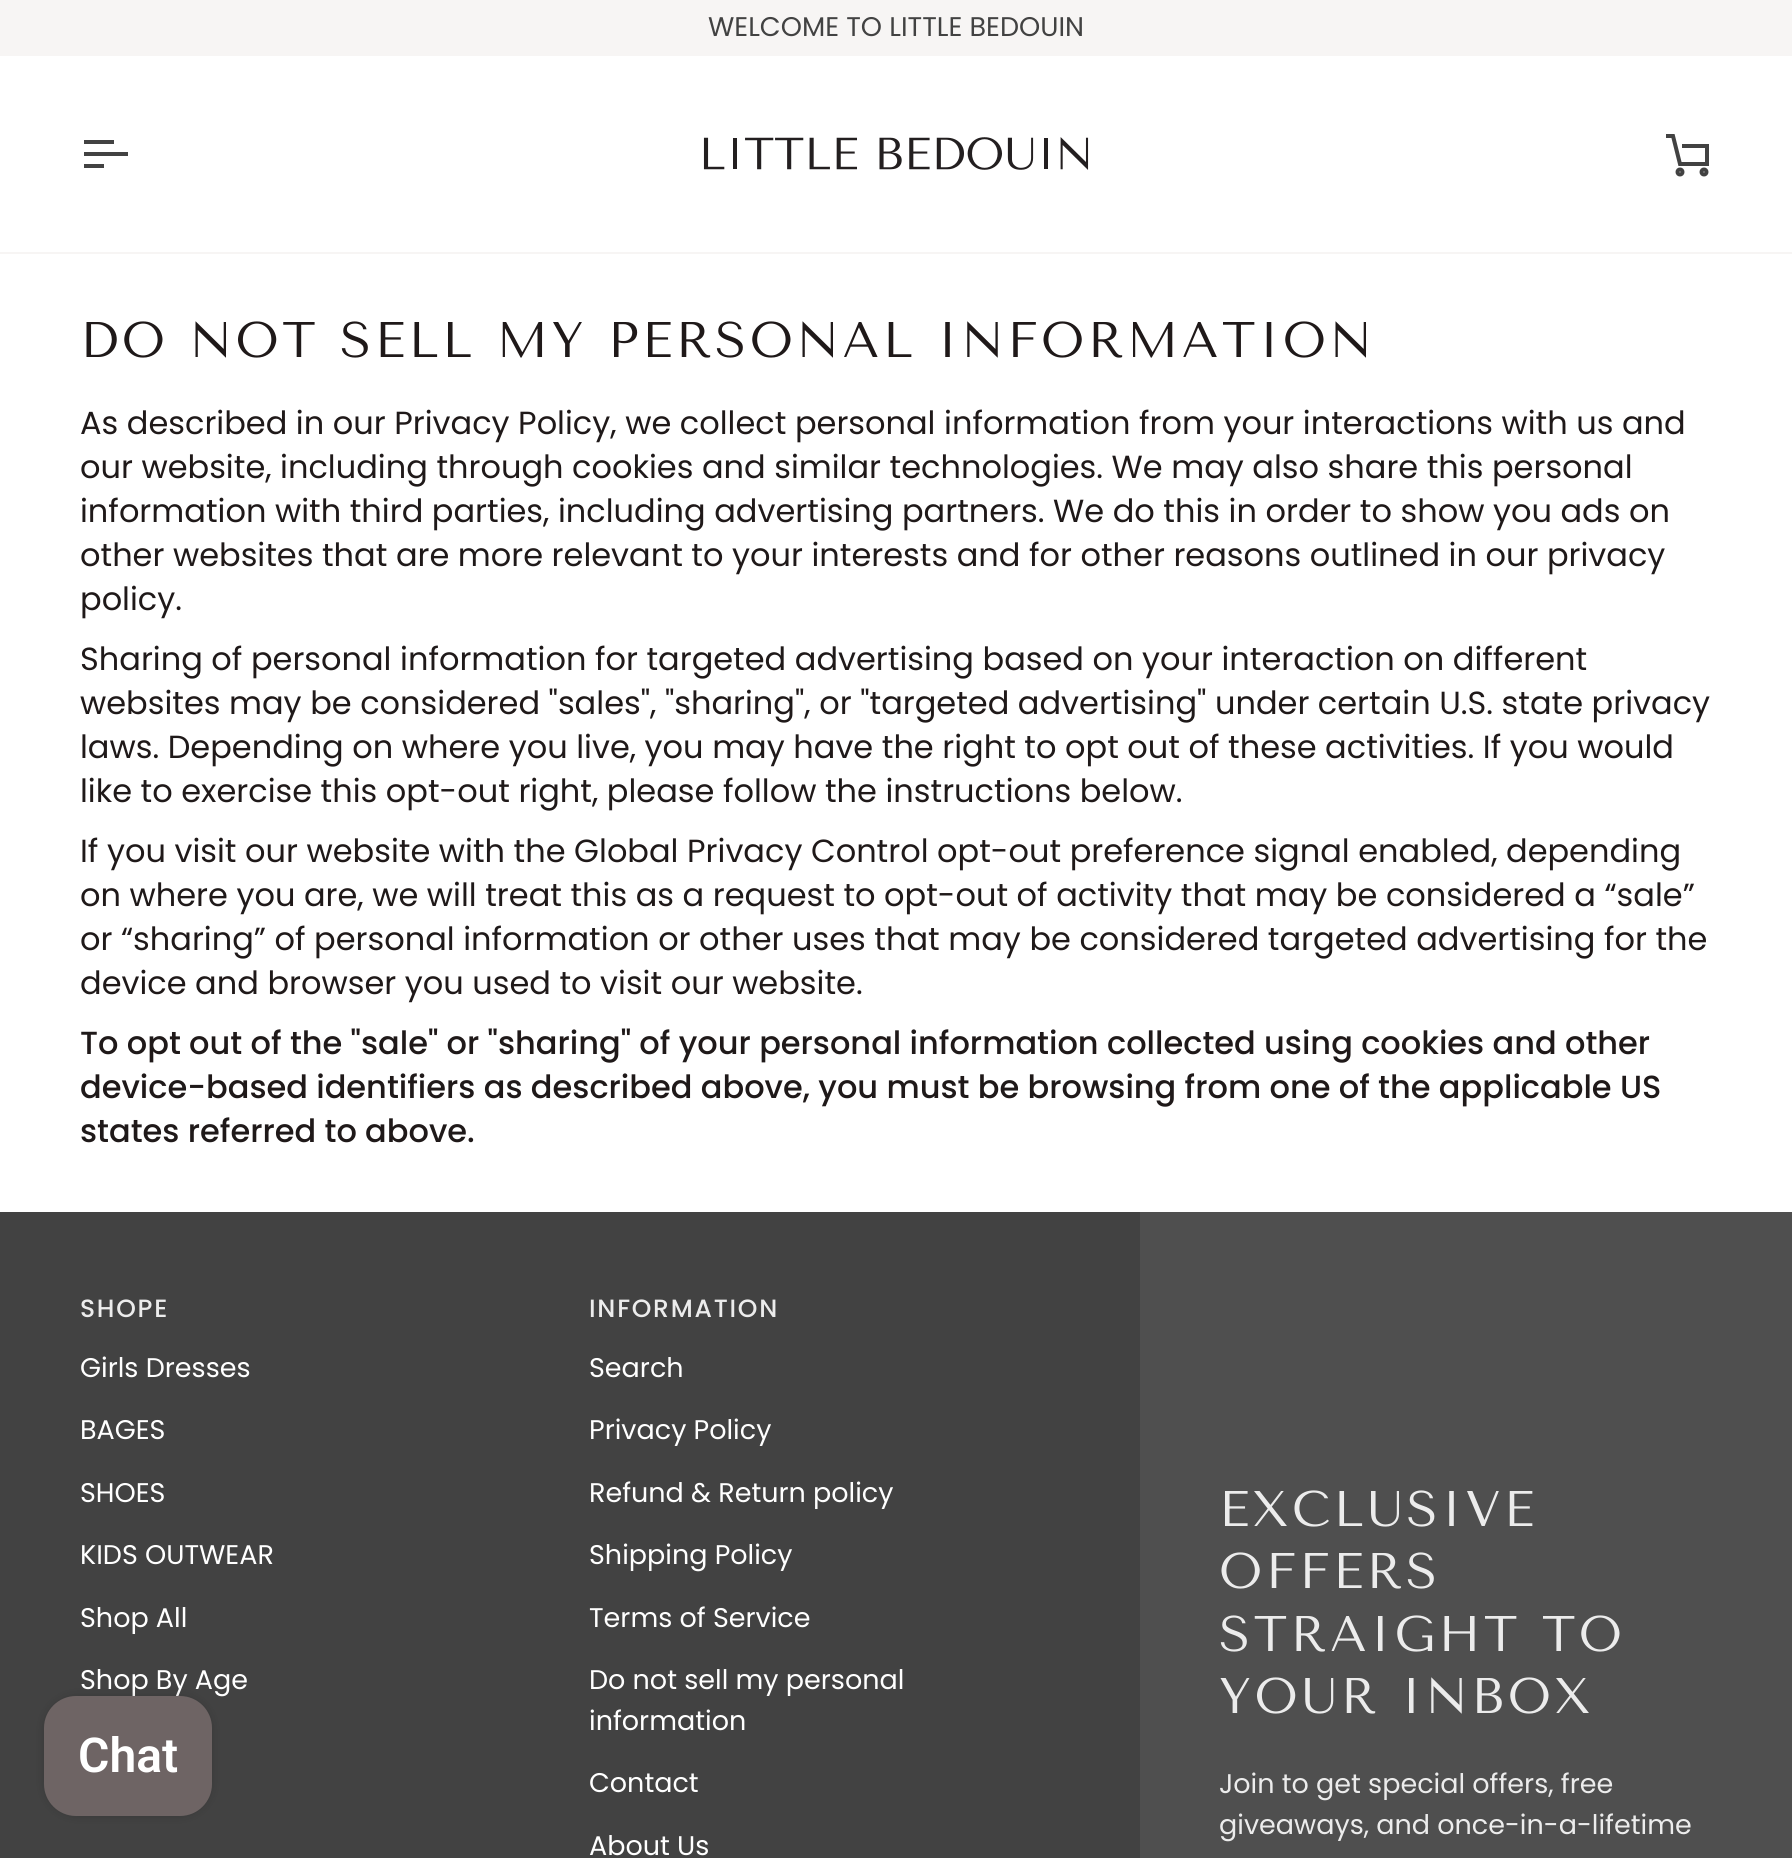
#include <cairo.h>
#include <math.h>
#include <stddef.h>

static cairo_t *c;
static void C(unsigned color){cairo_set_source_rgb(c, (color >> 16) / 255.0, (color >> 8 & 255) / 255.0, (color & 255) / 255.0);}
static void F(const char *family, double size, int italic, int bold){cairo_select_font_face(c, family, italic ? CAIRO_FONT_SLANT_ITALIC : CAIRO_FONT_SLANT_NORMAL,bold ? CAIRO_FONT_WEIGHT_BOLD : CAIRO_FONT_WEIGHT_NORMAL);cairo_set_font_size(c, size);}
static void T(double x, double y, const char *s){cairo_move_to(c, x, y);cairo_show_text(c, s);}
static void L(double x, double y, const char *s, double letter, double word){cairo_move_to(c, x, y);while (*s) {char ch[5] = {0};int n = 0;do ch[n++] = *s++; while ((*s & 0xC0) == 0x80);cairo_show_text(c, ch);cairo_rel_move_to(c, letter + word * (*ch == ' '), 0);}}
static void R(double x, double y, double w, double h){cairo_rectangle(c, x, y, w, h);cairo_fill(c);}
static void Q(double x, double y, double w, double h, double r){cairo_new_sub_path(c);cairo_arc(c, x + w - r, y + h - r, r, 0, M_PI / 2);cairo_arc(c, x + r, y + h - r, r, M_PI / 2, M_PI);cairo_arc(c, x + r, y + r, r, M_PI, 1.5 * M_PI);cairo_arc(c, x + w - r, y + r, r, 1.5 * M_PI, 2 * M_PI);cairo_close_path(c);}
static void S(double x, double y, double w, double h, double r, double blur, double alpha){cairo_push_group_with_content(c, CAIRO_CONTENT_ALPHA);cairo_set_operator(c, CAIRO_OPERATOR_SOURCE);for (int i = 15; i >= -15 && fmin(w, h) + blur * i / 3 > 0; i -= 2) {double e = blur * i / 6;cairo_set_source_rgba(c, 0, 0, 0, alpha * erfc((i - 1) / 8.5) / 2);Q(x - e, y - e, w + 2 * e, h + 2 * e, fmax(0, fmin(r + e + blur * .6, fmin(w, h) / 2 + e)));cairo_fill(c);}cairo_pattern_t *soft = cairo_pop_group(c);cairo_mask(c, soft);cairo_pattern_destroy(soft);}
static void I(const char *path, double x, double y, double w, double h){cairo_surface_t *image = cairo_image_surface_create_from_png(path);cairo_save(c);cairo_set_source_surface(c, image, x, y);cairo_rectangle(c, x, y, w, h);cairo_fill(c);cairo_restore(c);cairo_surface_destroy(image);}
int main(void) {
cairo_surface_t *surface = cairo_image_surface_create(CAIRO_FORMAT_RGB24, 1792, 1858);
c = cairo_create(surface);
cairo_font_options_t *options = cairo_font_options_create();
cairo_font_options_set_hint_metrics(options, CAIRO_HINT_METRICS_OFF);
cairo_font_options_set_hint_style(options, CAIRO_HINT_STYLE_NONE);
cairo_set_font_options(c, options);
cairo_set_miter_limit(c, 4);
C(0xffffff);
cairo_paint(c);
C(0xf7f5f4);
R(0,252,1792,2);
R(0,0,1792,56);
F("Poppins",27,0,0);
C(0x424242);
T(708,36,"WELCOME TO LITTLE BEDOUIN");
cairo_new_path(c);
cairo_move_to(c,112,142);
cairo_line_to(c,86,142);
cairo_move_to(c,126,154);
cairo_line_to(c,86,154);
cairo_move_to(c,102,166);
cairo_line_to(c,86,166);
cairo_set_line_width(c,4);
cairo_set_line_cap(c,CAIRO_LINE_CAP_SQUARE);
cairo_stroke(c);
I("1.png",703,137,386,33);
cairo_new_path(c);
cairo_move_to(c,1666,136);
cairo_line_to(c,1673,136);
cairo_line_to(c,1680,164);
cairo_line_to(c,1707,164);
cairo_line_to(c,1707,146);
cairo_line_to(c,1682,146);
cairo_set_line_cap(c,CAIRO_LINE_CAP_BUTT);
cairo_stroke(c);
cairo_arc(c,1680,172,2.5,0,2 * M_PI);
cairo_stroke(c);
cairo_arc(c,1704,172,2.5,0,2 * M_PI);
cairo_stroke(c);
F("Tenor Sans",50,0,0);
C(0x1f1919);
L(80,357,"DO NOT SELL MY PERSONAL INFORMATION",3.5,0);
F("Poppins",32,0,0);
T(80,434,"As described in our Privacy Policy, we collect personal information from your interactions with us and");
T(80,478,"our website, including through cookies and similar technologies. We may also share this personal");
T(80,522,"information with third parties, including advertising partners. We do this in order to show you ads on");
T(80,566,"other websites that are more relevant to your interests and for other reasons outlined in our privacy");
T(80,610,"policy.");
T(80,670,"Sharing of personal information for targeted advertising based on your interaction on different");
T(80,714,"websites may be considered \"sales\", \"sharing\", or \"targeted advertising\" under certain U.S. state privacy");
T(80,758,"laws. Depending on where you live, you may have the right to opt out of these activities. If you would");
T(80,802,"like to exercise this opt-out right, please follow the instructions below.");
T(80,862,"If you visit our website with the Global Privacy Control opt-out preference signal enabled, depending");
T(80,906,"on where you are, we will treat this as a request to opt-out of activity that may be considered a “sale”");
T(80,950,"or “sharing” of personal information or other uses that may be considered targeted advertising for the");
T(80,994,"device and browser you used to visit our website.");
F("Poppins Medium",32,0,0);
T(80,1054,"To opt out of the \"sale\" or \"sharing\" of your personal information collected using cookies and other");
T(80,1098,"device-based identifiers as described above, you must be browsing from one of the applicable US");
T(80,1142,"states referred to above.");
C(0x424242);
R(0,1212,1140,646);
F("Poppins Medium",25,0,0);
C(0xececec);
L(80,1317,"SHOPE",1.75,0);
F("Poppins",27,0,0);
C(0xffffff);
T(80,1377,"Girls Dresses");
T(80,1439,"BAGES");
T(80,1502,"SHOES");
T(80,1564,"KIDS OUTWEAR");
T(80,1627,"Shop All");
T(80,1689,"Shop By Age");
F("Poppins Medium",25,0,0);
C(0xececec);
L(589,1317,"INFORMATION",1.75,0);
F("Poppins",27,0,0);
C(0xffffff);
T(589,1377,"Search");
T(589,1439,"Privacy Policy");
T(589,1502,"Refund & Return policy");
T(589,1564,"Shipping Policy");
T(589,1627,"Terms of Service");
T(589,1689,"Do not sell my personal");
T(589,1730,"information");
T(589,1792,"Contact");
T(589,1855,"About Us");
C(0x4f4f4f);
R(1140,1212,652,646);
F("Tenor Sans",50,0,0);
C(0xececec);
L(1219,1526,"EXCLUSIVE",3.5,0);
L(1219,1588,"OFFERS",3.5,0);
L(1219,1651,"STRAIGHT TO",3.5,0);
L(1219,1713,"YOUR INBOX",3.5,0);
F("Poppins",27,0,0);
T(1219,1793,"Join to get special offers, free");
T(1219,1834,"giveaways, and once-in-a-lifetime");
C(0x000000);
S(44,1696,168,120,32,5,.15);
C(0x6e6464);
Q(44,1696,168,120,32);
cairo_fill(c);
F("Roboto SemiBold",48,0,0);
C(0xffffff);
T(78,1772,"Chat");
cairo_surface_write_to_png(surface, "o.png");
cairo_font_options_destroy(options);
cairo_destroy(c);
cairo_surface_destroy(surface);
return 0;
}
